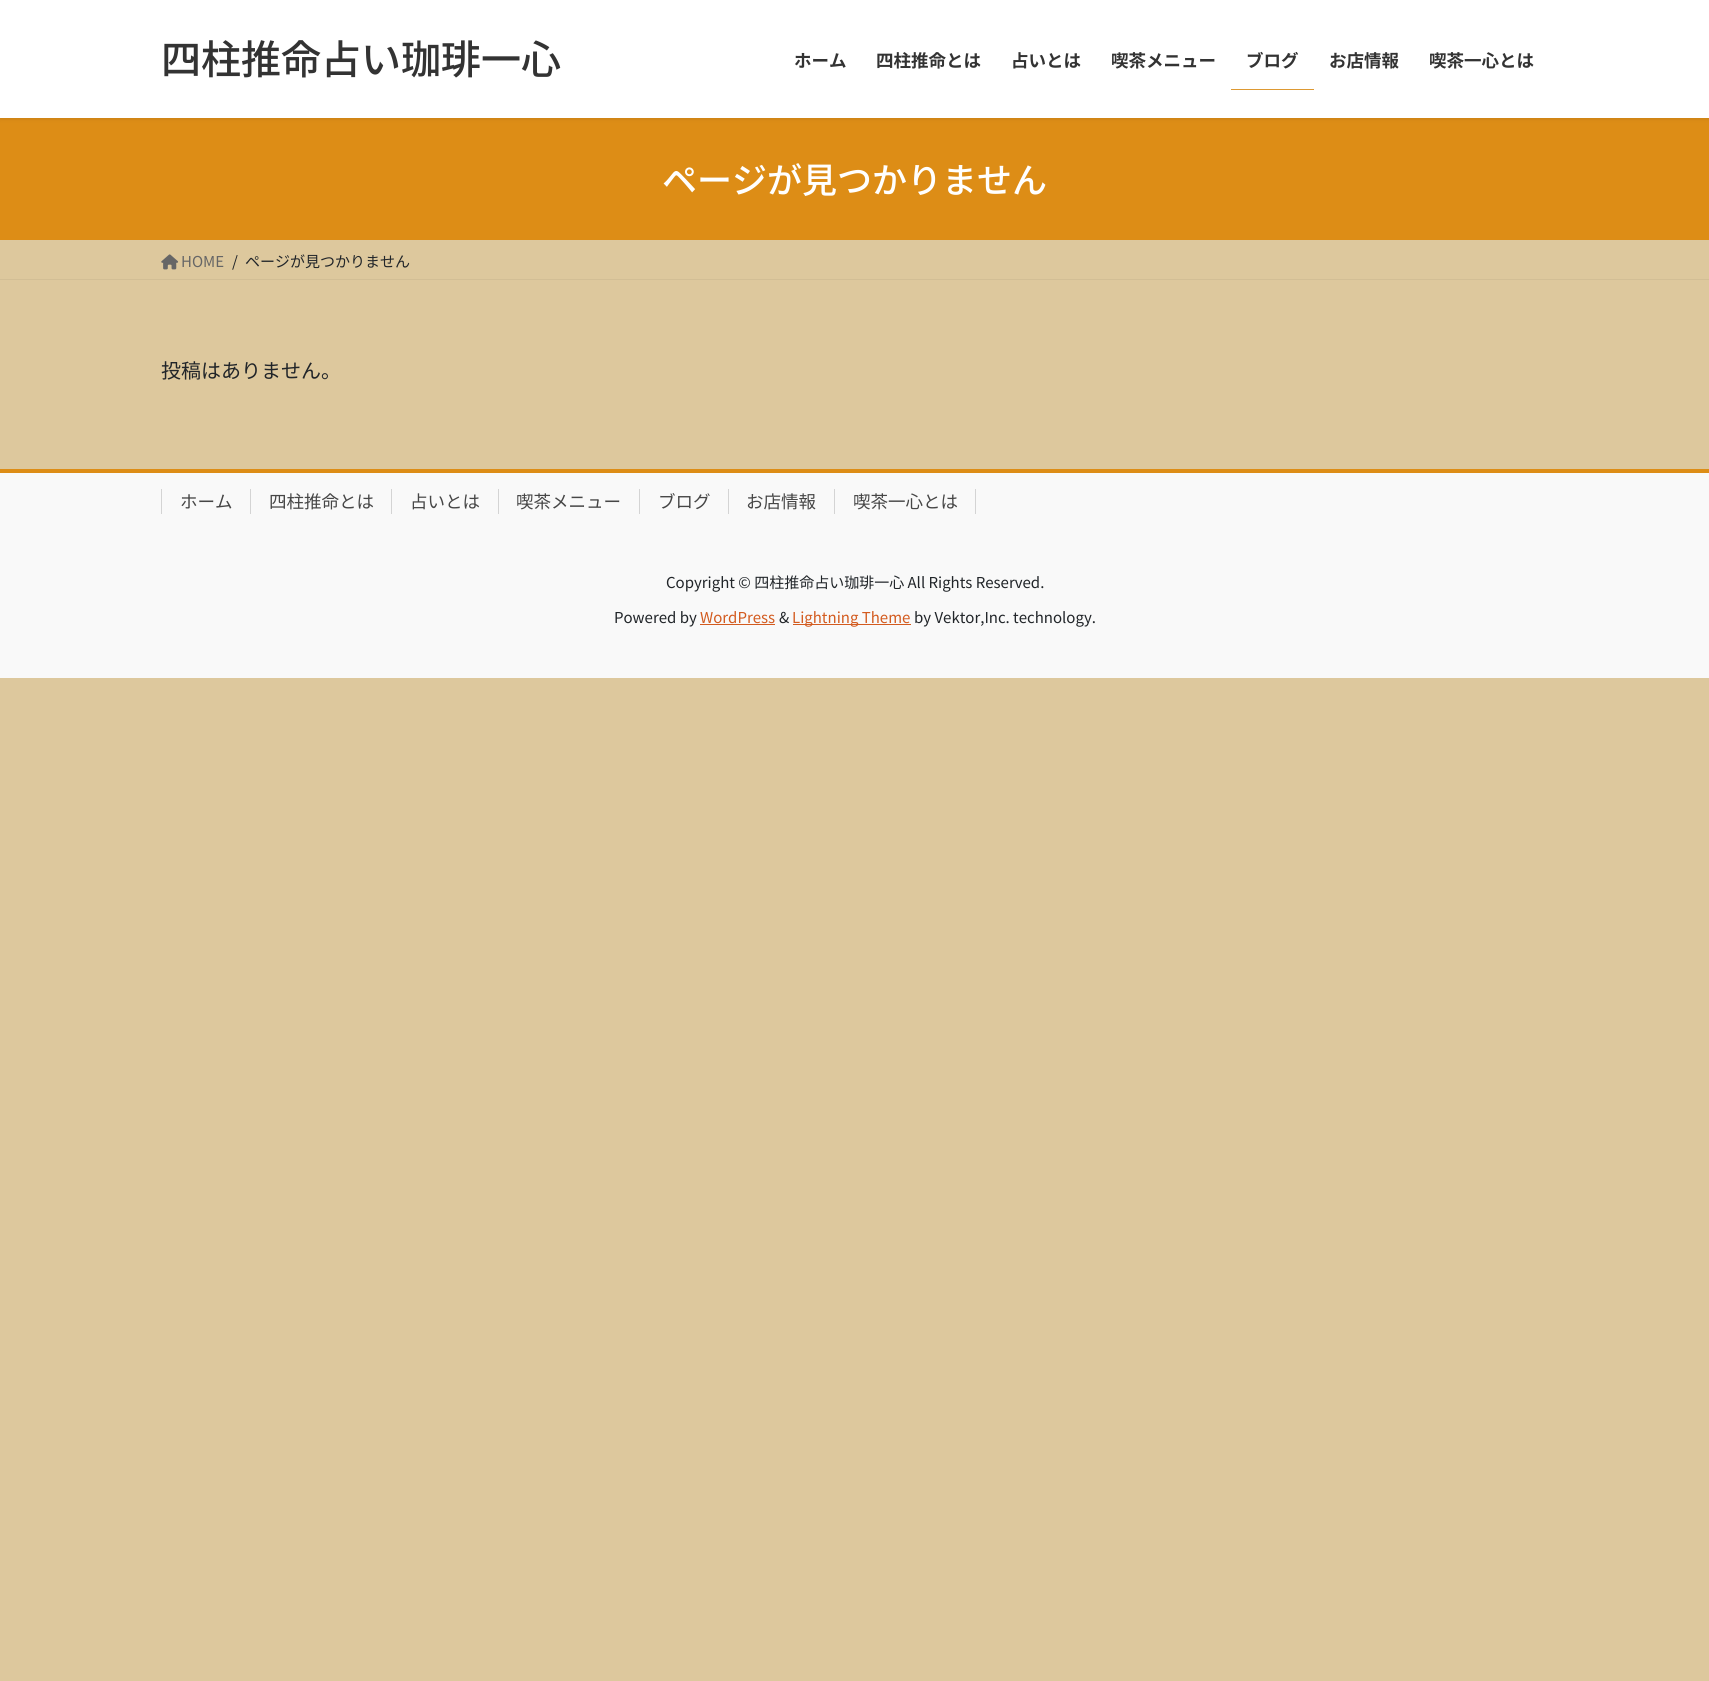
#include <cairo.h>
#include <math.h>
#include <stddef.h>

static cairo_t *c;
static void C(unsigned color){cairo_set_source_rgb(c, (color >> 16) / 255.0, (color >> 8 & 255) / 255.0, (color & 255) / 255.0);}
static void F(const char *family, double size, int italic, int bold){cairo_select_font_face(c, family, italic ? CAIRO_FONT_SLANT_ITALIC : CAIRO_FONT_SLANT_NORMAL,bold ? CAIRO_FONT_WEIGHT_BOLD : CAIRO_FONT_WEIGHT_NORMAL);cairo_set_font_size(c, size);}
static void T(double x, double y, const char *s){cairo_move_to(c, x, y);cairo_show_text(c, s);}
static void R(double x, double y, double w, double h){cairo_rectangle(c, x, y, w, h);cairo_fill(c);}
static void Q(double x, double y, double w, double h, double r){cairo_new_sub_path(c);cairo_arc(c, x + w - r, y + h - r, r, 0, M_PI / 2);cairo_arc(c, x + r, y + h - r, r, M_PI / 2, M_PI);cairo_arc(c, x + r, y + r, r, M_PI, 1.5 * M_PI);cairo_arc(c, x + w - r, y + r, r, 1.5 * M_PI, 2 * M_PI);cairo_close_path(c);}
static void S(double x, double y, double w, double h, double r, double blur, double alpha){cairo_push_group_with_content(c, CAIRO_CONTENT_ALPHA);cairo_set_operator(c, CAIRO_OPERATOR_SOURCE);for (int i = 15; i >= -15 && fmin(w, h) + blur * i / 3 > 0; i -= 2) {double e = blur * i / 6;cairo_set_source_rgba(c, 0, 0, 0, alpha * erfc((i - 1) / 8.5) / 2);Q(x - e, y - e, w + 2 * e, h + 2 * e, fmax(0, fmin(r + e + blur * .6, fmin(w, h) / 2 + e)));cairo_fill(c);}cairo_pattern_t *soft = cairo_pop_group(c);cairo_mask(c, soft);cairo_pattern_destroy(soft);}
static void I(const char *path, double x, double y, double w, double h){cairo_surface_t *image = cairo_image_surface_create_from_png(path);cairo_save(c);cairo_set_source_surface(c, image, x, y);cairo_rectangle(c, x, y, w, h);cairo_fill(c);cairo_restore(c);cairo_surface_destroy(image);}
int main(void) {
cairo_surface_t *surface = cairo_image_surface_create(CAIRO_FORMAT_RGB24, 1709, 1681);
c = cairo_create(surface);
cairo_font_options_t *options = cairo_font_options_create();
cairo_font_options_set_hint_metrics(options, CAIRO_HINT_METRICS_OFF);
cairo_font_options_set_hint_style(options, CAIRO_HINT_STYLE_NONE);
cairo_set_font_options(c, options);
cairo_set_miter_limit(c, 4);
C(0xddc89d);
cairo_paint(c);
C(0xdd8d16);
R(0,118,1709,122);
C(0x000000);
S(0,1,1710,118,0,2,.1);
C(0xffffff);
R(0,0,1709,118);
F("Noto Sans JP Medium",40,0,0);
C(0x333333);
T(161,74,"四柱推命占い珈琲一心");
F("Noto Sans JP",17.5,0,1);
T(794,67,"ホーム");
T(876,67,"四柱推命とは");
T(1011,67,"占いとは");
T(1111,67,"喫茶メニュー");
T(1246,67,"ブログ");
C(0xdd9933);
R(1231,89,83,1);
C(0x333333);
T(1329,67,"お店情報");
T(1429,67,"喫茶一心とは");
F("Noto Sans JP Medium",35,0,0);
C(0xffffff);
T(662,193,"ページが見つかりません");
C(0xd2be95);
R(0,279,1709,1);
I("1.png",161,254,18,16);
F("Noto Sans JP",15,0,0);
C(0x666666);
T(181,267,"HOME");
C(0x212529);
T(232,267,"/");
T(245,267,"ページが見つかりません");
F("Noto Sans JP",20,0,0);
T(161,378,"投稿はありません。");
C(0xf9f9f9);
R(0,473,1709,205);
C(0xdd8d16);
R(0,469,1709,4);
F("Noto Sans JP",17.5,0,0);
C(0x464646);
T(180,508,"ホーム");
C(0xd4d4d4);
R(161,489,1,25);
C(0x464646);
T(269,508,"四柱推命とは");
C(0xd4d4d4);
R(250,489,1,25);
C(0x464646);
T(410,508,"占いとは");
C(0xd4d4d4);
R(391,489,1,25);
C(0x464646);
T(516,508,"喫茶メニュー");
C(0xd4d4d4);
R(498,489,1,25);
C(0x464646);
T(658,508,"ブログ");
C(0xd4d4d4);
R(639,489,1,25);
C(0x464646);
T(746,508,"お店情報");
C(0xd4d4d4);
R(728,489,1,25);
C(0x464646);
T(853,508,"喫茶一心とは");
C(0xd4d4d4);
R(975,489,1,25);
R(834,489,1,25);
F("Noto Sans JP",15,0,0);
C(0x212529);
T(666,588,"Copyright © 四柱推命占い珈琲一心 All Rights Reserved.");
T(614,623,"Powered by");
C(0xd35b1f);
T(700,623,"WordPress");
R(700,624,75,1);
C(0x212529);
T(779,623,"&");
C(0xd35b1f);
R(793,624,118,1);
T(792,623,"Lightning Theme");
C(0x212529);
T(914,623,"by Vektor,Inc. technology.");
cairo_surface_write_to_png(surface, "o.png");
cairo_font_options_destroy(options);
cairo_destroy(c);
cairo_surface_destroy(surface);
return 0;
}
